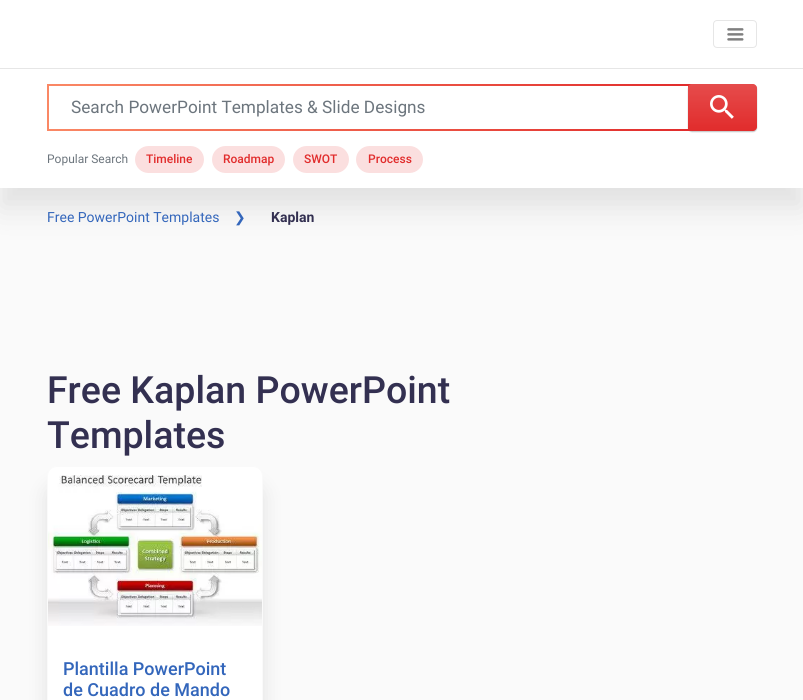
#include <cairo.h>
#include <math.h>
#include <stddef.h>

static cairo_t *c;
static void C(unsigned color){cairo_set_source_rgb(c, (color >> 16) / 255.0, (color >> 8 & 255) / 255.0, (color & 255) / 255.0);}
static void F(const char *family, double size, int italic, int bold){cairo_select_font_face(c, family, italic ? CAIRO_FONT_SLANT_ITALIC : CAIRO_FONT_SLANT_NORMAL,bold ? CAIRO_FONT_WEIGHT_BOLD : CAIRO_FONT_WEIGHT_NORMAL);cairo_set_font_size(c, size);}
static void T(double x, double y, const char *s){cairo_move_to(c, x, y);cairo_show_text(c, s);}
static void R(double x, double y, double w, double h){cairo_rectangle(c, x, y, w, h);cairo_fill(c);}
static void Q(double x, double y, double w, double h, double r){cairo_new_sub_path(c);cairo_arc(c, x + w - r, y + h - r, r, 0, M_PI / 2);cairo_arc(c, x + r, y + h - r, r, M_PI / 2, M_PI);cairo_arc(c, x + r, y + r, r, M_PI, 1.5 * M_PI);cairo_arc(c, x + w - r, y + r, r, 1.5 * M_PI, 2 * M_PI);cairo_close_path(c);}
static void S(double x, double y, double w, double h, double r, double blur, double alpha){cairo_push_group_with_content(c, CAIRO_CONTENT_ALPHA);cairo_set_operator(c, CAIRO_OPERATOR_SOURCE);for (int i = 15; i >= -15 && fmin(w, h) + blur * i / 3 > 0; i -= 2) {double e = blur * i / 6;cairo_set_source_rgba(c, 0, 0, 0, alpha * erfc((i - 1) / 8.5) / 2);Q(x - e, y - e, w + 2 * e, h + 2 * e, fmax(0, fmin(r + e + blur * .6, fmin(w, h) / 2 + e)));cairo_fill(c);}cairo_pattern_t *soft = cairo_pop_group(c);cairo_mask(c, soft);cairo_pattern_destroy(soft);}
static void I(const char *path, double x, double y, double w, double h){cairo_surface_t *image = cairo_image_surface_create_from_png(path);cairo_save(c);cairo_set_source_surface(c, image, x, y);cairo_rectangle(c, x, y, w, h);cairo_fill(c);cairo_restore(c);cairo_surface_destroy(image);}
int main(void) {
cairo_surface_t *surface = cairo_image_surface_create(CAIRO_FORMAT_RGB24, 803, 700);
c = cairo_create(surface);
cairo_font_options_t *options = cairo_font_options_create();
cairo_font_options_set_hint_metrics(options, CAIRO_HINT_METRICS_OFF);
cairo_font_options_set_hint_style(options, CAIRO_HINT_STYLE_NONE);
cairo_set_font_options(c, options);
cairo_set_miter_limit(c, 4);
cairo_pattern_t *gradient;
C(0xfafafa);
cairo_paint(c);
C(0x000000);
S(0,88,803,120,0,15,.1);
C(0xffffff);
R(0,0,803,68);
Q(713.5,20.5,43,27,3.5);
C(0xe6e6e6);
cairo_set_line_width(c,1);
cairo_stroke(c);
I("1.png",727,28,17,13);
C(0xffffff);
R(0,69,803,119);
C(0xe6e6e6);
R(0,68,803,1);
I("2.png",47,84,641,47);
F("Roboto",17.25,0,0);
C(0x6c757d);
T(71,113,"Search PowerPoint Templates & Slide Designs");
C(0x3c4043);
S(688,85,69,47,4,.5,.3);
C(0xe12c2c);
cairo_new_path(c);
cairo_move_to(c,688,84);
cairo_line_to(c,753,84);
cairo_curve_to(c,755,84,757,86,757,88);
cairo_line_to(c,757,127);
cairo_curve_to(c,757,129,755,131,753,131);
cairo_line_to(c,688,131);
cairo_close_path(c);
cairo_fill(c);
I("3.png",710,95,24,24);
gradient = cairo_pattern_create_linear(723,84,723,131);
cairo_pattern_add_color_stop_rgba(gradient,0,1,1,1,.15);
cairo_pattern_add_color_stop_rgba(gradient,1,1,1,1,0);
cairo_set_source(c,gradient);
cairo_pattern_destroy(gradient);
Q(688,84,69,47,4);
cairo_fill(c);
F("Roboto",12,0,0);
C(0x6c757d);
T(47,163,"Popular Search");
C(0xfbdfdf);
Q(135,146,69,27,13.5);
cairo_fill(c);
F("Roboto Medium",12,0,0);
C(0xe12c2c);
T(146,163,"Timeline");
C(0xfbdfdf);
Q(212,146,73,27,13.5);
cairo_fill(c);
C(0xe12c2c);
T(223,163,"Roadmap");
C(0xfbdfdf);
Q(293,146,56,27,13.5);
cairo_fill(c);
C(0xe12c2c);
T(304,163,"SWOT");
C(0xfbdfdf);
Q(356,146,67,27,13.5);
cairo_fill(c);
C(0xe12c2c);
T(368,163,"Process");
F("Roboto",14,0,0);
C(0x3366bb);
T(47,222,"Free PowerPoint Templates");
F("DejaVu Sans",14,0,0);
T(234,222,"❯");
F("Roboto",14,0,1);
C(0x333051);
T(271,222,"Kaplan");
F("Roboto Medium",37.5,0,0);
T(47,403,"Free Kaplan PowerPoint");
T(47,448,"Templates");
C(0x000000);
S(47,486,216,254,10,10,.1);
C(0xffffff);
Q(47.5,466.5,215,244,9.5);
cairo_fill_preserve(c);
C(0xfafafa);
cairo_stroke(c);
I("4.png",48,475,214,151);
F("Roboto Medium",18,0,0);
C(0x3366bb);
T(63,675,"Plantilla PowerPoint");
T(63,696,"de Cuadro de Mando");
cairo_surface_write_to_png(surface, "o.png");
cairo_font_options_destroy(options);
cairo_destroy(c);
cairo_surface_destroy(surface);
return 0;
}
